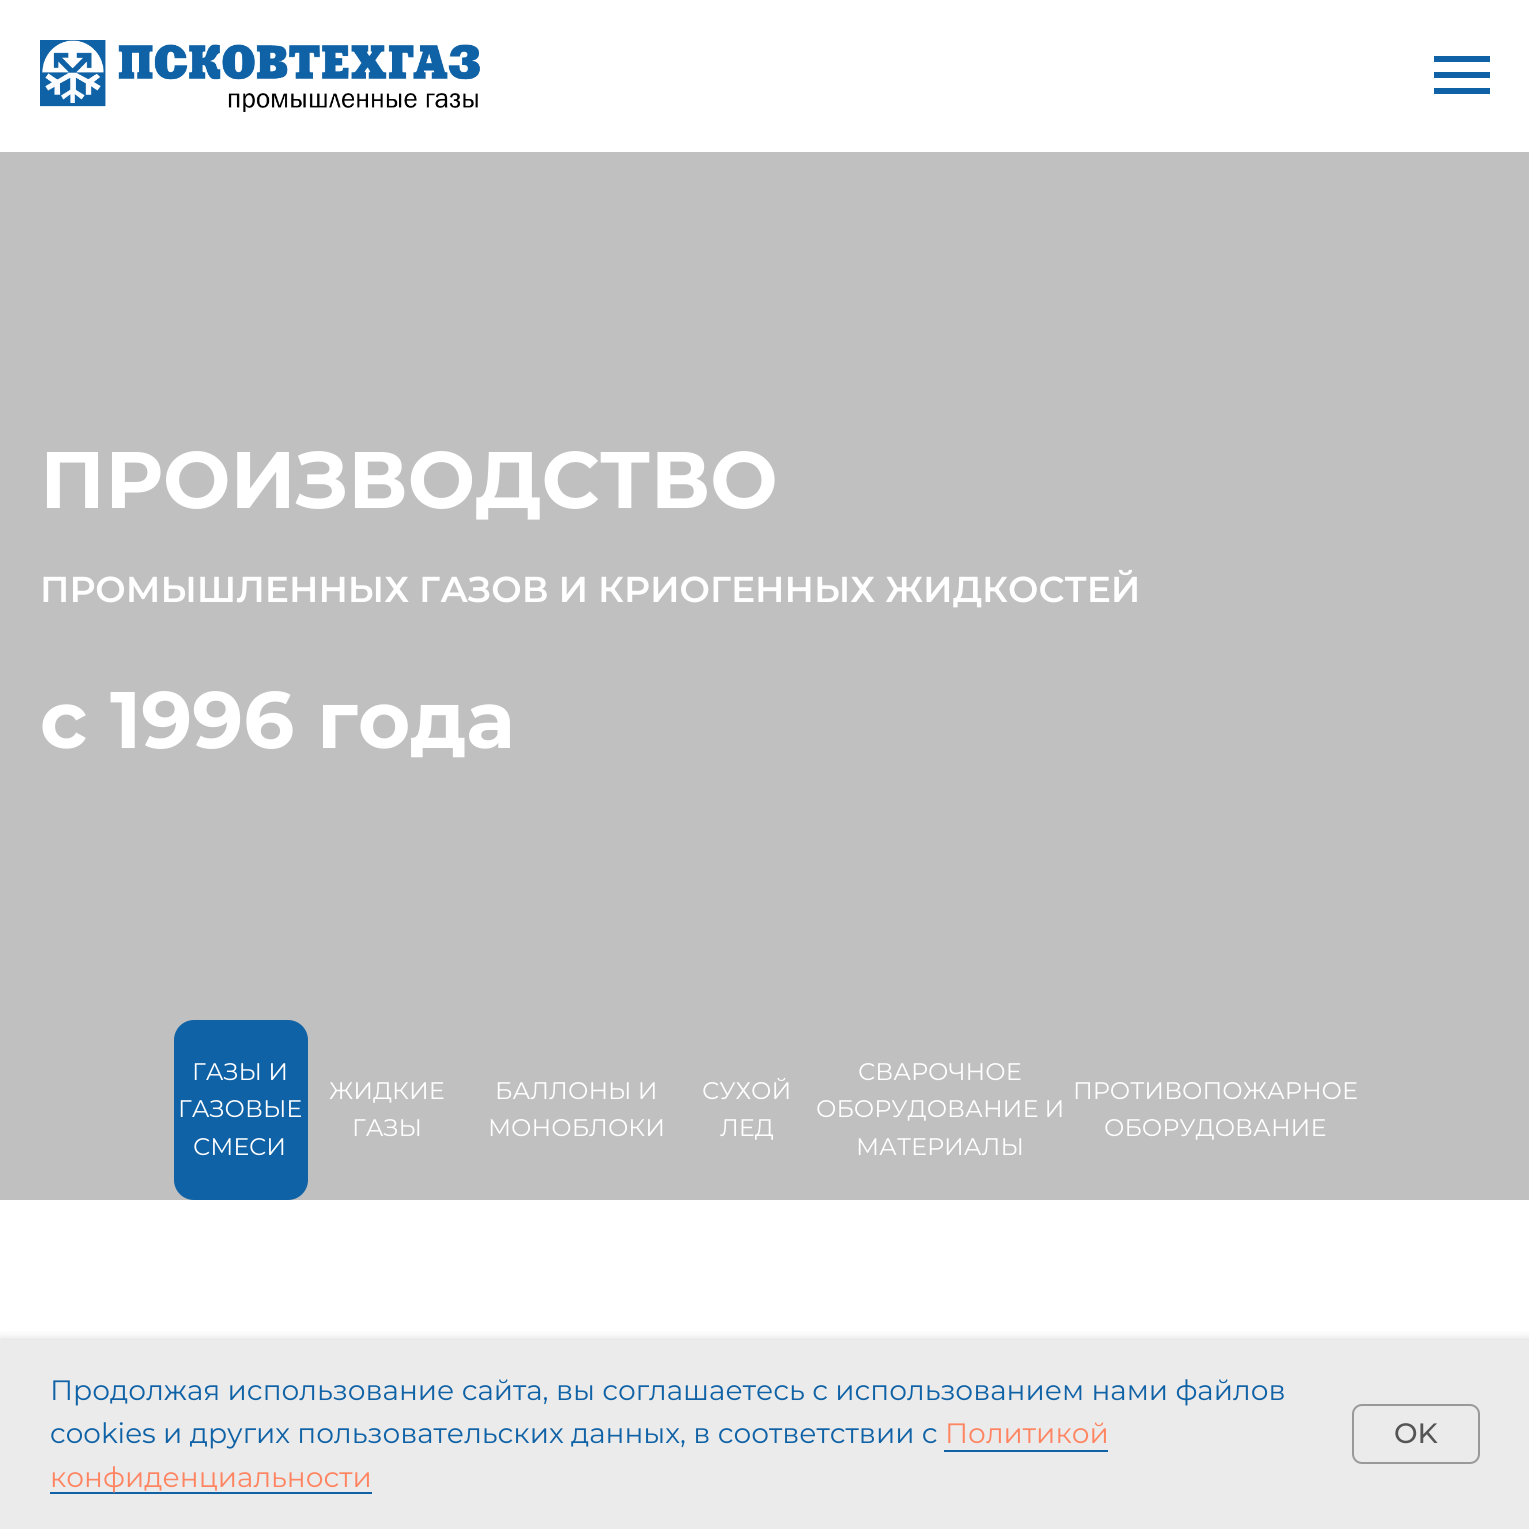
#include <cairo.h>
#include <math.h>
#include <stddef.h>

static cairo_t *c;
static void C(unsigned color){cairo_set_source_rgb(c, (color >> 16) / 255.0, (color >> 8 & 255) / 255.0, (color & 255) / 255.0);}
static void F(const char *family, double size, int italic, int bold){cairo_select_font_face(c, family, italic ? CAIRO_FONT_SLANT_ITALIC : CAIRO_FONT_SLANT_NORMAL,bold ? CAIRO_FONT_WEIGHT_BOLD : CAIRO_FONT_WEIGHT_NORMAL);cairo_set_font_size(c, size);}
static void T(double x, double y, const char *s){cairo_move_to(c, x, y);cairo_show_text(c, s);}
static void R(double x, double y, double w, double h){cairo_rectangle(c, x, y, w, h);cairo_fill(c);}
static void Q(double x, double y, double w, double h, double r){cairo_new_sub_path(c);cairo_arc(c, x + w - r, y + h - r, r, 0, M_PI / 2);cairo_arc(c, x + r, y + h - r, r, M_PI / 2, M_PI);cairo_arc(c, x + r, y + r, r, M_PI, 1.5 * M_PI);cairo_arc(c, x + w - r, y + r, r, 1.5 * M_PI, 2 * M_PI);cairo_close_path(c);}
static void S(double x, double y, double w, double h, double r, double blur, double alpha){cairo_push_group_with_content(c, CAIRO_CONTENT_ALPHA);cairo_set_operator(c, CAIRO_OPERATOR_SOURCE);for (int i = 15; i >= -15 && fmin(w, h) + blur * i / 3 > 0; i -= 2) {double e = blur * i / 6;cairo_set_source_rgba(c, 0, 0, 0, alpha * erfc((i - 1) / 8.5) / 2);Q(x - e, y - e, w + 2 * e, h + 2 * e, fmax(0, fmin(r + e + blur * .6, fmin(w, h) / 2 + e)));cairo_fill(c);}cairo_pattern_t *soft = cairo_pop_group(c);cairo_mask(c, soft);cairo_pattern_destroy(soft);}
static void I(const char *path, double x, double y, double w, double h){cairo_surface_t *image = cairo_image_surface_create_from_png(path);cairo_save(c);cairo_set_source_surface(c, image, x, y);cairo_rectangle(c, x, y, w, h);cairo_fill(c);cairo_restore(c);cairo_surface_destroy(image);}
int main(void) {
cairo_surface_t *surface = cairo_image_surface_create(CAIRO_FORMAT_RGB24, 1529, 1529);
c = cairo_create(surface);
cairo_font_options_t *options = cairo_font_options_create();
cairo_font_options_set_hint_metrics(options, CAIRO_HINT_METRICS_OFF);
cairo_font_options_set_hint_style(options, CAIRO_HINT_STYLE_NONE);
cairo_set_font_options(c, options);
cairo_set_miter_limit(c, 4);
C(0xffffff);
cairo_paint(c);
I("1.png",40,40,440,72);
C(0x1062a6);
R(1434,56,56,6);
R(1434,72,56,6);
R(1434,88,56,6);
C(0x000000);
S(0,1340,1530,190,0,5,.1);
C(0xc0c0c0);
R(0,152,1529,1048);
F("Montserrat",80,0,1);
C(0xffffff);
T(40,508,"ПРОИЗВОДСТВО");
F("Montserrat SemiBold",36,0,0);
T(40,602,"ПРОМЫШЛЕННЫХ ГАЗОВ И КРИОГЕННЫХ ЖИДКОСТЕЙ");
F("Montserrat",80,0,1);
T(40,748,"с 1996 года");
C(0x1062a6);
Q(174,1020,134,180,20);
cairo_fill(c);
F("Montserrat",24,0,0);
C(0xffffff);
T(192,1080,"ГАЗЫ И");
T(178,1117,"ГАЗОВЫЕ");
T(193,1155,"СМЕСИ");
T(329,1099,"ЖИДКИЕ");
T(352,1136,"ГАЗЫ");
T(495,1099,"БАЛЛОНЫ И");
T(488,1136,"МОНОБЛОКИ");
T(702,1099,"СУХОЙ");
T(720,1136,"ЛЕД");
T(858,1080,"СВАРОЧНОЕ");
T(816,1117,"ОБОРУДОВАНИЕ И");
T(856,1155,"МАТЕРИАЛЫ");
T(1073,1099,"ПРОТИВОПОЖАРНОЕ");
T(1104,1136,"ОБОРУДОВАНИЕ");
C(0x000000);
S(0,1340,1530,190,0,5,.1);
C(0xebebeb);
R(0,1340,1529,189);
F("Montserrat",28,0,0);
C(0x1062a6);
T(50,1400,"Продолжая использование сайта, вы соглашаетесь с использованием нами файлов");
T(50,1443,"cookies и других пользовательских данных, в соответствии с");
C(0xff8562);
T(945,1443,"Политикой");
C(0x1062a6);
R(944,1450,164,2);
R(50,1492,322,2);
C(0xff8562);
T(50,1487,"конфиденциальности");
Q(1353,1405,126,58,9);
C(0x999999);
cairo_stroke(c);
F("Montserrat Medium",28,0,0);
C(0x555555);
T(1394,1443,"OK");
cairo_surface_write_to_png(surface, "o.png");
cairo_font_options_destroy(options);
cairo_destroy(c);
cairo_surface_destroy(surface);
return 0;
}
